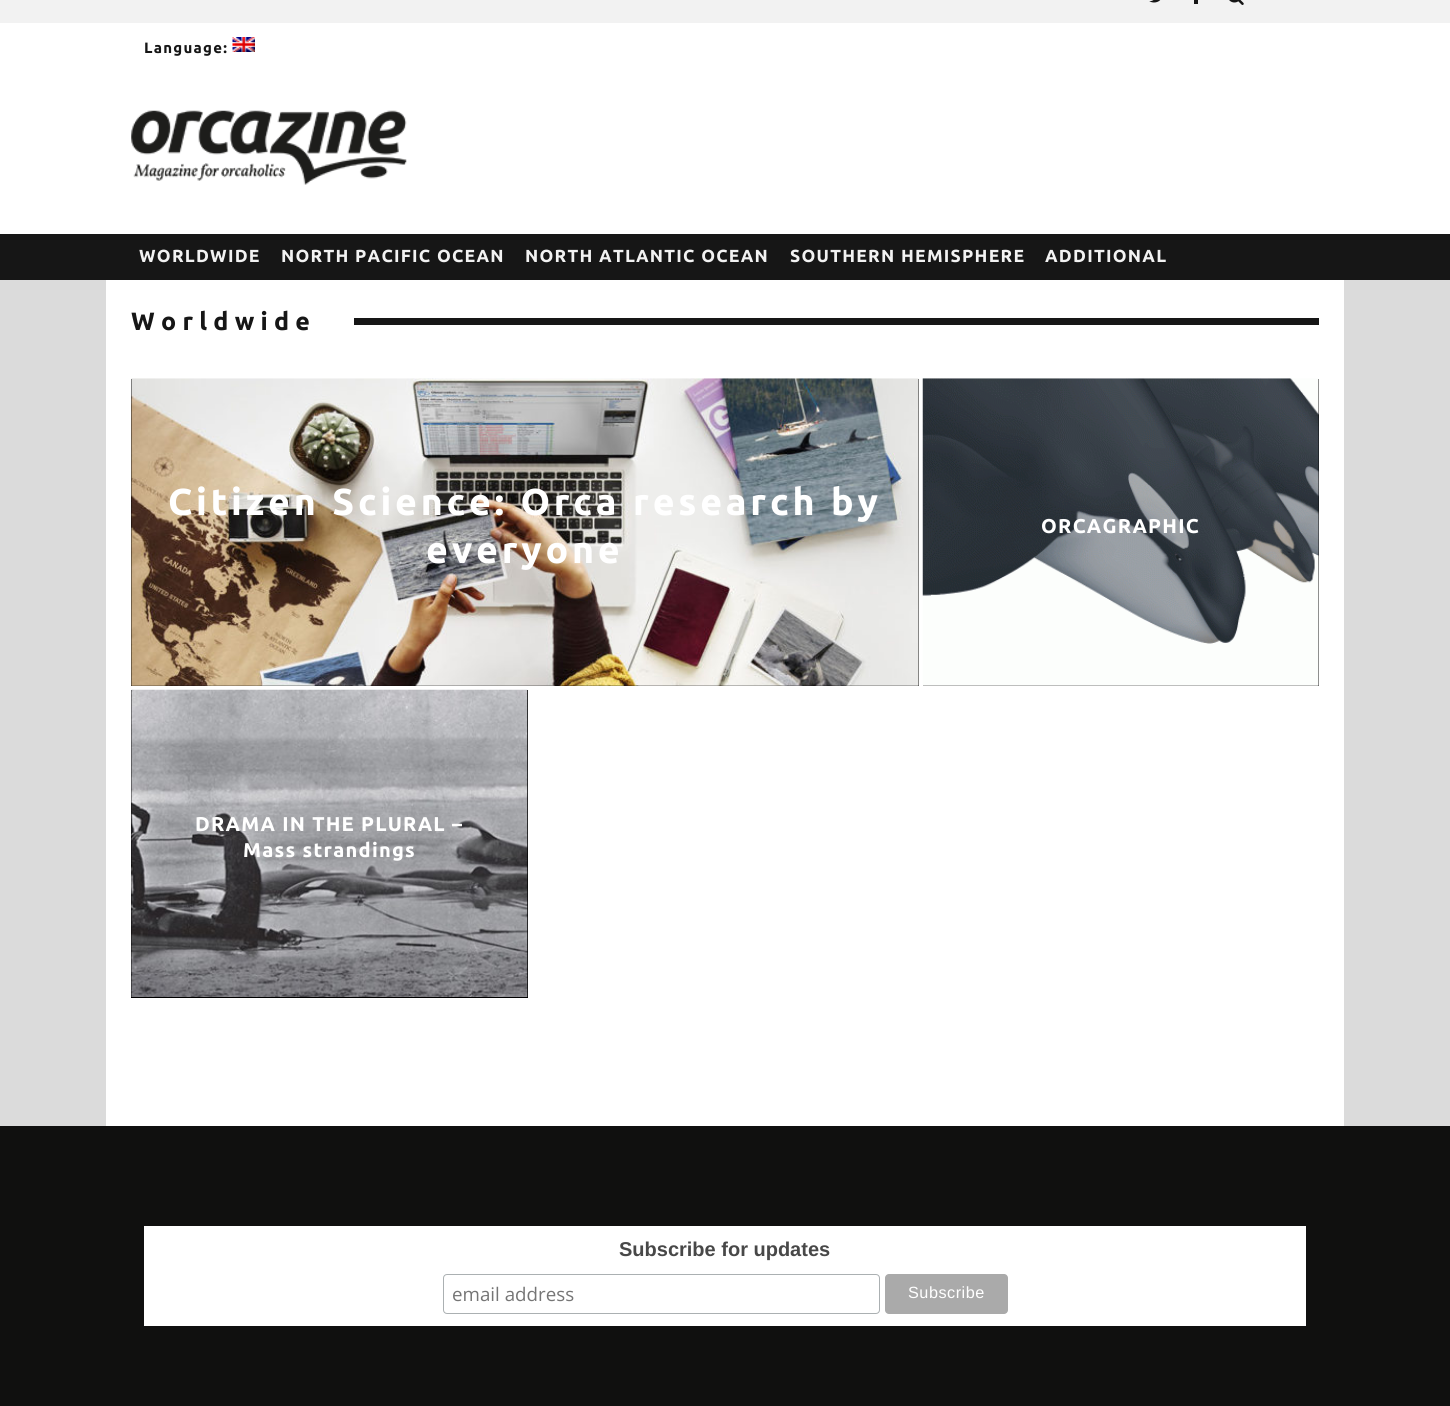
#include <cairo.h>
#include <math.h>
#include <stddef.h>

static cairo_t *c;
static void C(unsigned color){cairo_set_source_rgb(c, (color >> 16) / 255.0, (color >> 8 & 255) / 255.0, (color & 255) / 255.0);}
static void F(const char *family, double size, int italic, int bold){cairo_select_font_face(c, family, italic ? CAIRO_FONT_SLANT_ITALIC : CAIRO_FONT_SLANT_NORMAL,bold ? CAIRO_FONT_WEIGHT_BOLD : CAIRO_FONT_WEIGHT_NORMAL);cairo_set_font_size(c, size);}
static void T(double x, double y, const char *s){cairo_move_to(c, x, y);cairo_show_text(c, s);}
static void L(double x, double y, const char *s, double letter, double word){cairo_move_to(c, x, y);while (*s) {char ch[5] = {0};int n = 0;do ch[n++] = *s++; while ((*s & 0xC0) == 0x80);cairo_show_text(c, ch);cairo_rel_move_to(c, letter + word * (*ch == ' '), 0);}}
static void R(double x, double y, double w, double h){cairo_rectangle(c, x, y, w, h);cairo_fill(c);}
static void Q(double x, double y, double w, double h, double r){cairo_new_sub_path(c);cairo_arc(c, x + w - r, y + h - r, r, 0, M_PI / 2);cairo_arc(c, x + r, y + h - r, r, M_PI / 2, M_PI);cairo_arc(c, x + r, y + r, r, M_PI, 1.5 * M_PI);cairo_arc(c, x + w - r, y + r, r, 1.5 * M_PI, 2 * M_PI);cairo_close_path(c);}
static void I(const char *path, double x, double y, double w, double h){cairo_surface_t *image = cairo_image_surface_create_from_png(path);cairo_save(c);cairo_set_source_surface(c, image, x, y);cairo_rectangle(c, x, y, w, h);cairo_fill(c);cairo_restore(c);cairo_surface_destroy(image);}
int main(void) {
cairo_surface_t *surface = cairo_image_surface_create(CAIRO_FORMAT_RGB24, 1450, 1406);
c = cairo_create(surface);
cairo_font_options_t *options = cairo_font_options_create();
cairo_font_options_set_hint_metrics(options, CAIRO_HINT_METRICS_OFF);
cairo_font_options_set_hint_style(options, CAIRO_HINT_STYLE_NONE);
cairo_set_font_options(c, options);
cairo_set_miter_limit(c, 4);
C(0xdbdbdb);
cairo_paint(c);
C(0xf2f2f2);
R(0,0,1450,23);
I("1.png",1149,0,12,3);
C(0x161616);
R(1194,0,4,4);
I("2.png",1229,0,15,5);
C(0xffffff);
R(0,23,1450,211);
F("Ubuntu",15,0,1);
C(0x161616);
L(144,53,"Language:",1.25,0);
I("3.png",232,37,23,15);
I("4.png",131,110,276,75);
R(0,234,1450,46);
F("Ubuntu",17.5,0,1);
C(0xf2f2f2);
L(139,262,"WORLDWIDE",1.25,0);
L(281,262,"NORTH PACIFIC OCEAN",1.25,0);
L(525,262,"NORTH ATLANTIC OCEAN",1.25,0);
L(790,262,"SOUTHERN HEMISPHERE",1.25,0);
L(1045,262,"ADDITIONAL",1.25,0);
C(0xffffff);
R(106,280,1238,846);
F("Ubuntu",25,0,1);
C(0x161616);
L(131,330,"Worldwide",6.25,0);
R(354,318,965,7);
C(0x000000);
R(131,379,788,307);
I("5.png",131,378,788,308);
F("Ubuntu",37.5,0,1);
C(0xffffff);
L(168,515,"Citizen Science: Orca research by",3.75,0);
L(426,563,"everyone",3.75,0);
C(0x000000);
R(923,379,396,307);
I("6.png",922,378,397,308);
F("Ubuntu",20,0,1);
C(0xffffff);
L(1041,533,"ORCAGRAPHIC",1.25,0);
C(0x000000);
R(131,690,397,308);
I("7.png",131,689,397,308);
C(0xffffff);
L(195,831,"DRAMA IN THE PLURAL –",1.25,0);
L(243,857,"Mass strandings",1.25,0);
C(0x10100f);
R(0,1126,1450,280);
C(0xffffff);
R(144,1226,1162,100);
F("Liberation Sans",20,0,1);
C(0x484848);
T(619,1256,"Subscribe for updates");
Q(443.5,1274.5,436,39,3.5);
C(0xabb0b2);
cairo_set_line_width(c,1);
cairo_stroke(c);
F("Open Sans",18.75,0,0);
C(0x757575);
T(452,1301,"email address");
C(0xaaaaaa);
Q(885,1274,123,40,4);
cairo_fill(c);
F("Liberation Sans",16.25,0,0);
C(0xffffff);
L(908,1298,"Subscribe",.5,0);
cairo_surface_write_to_png(surface, "o.png");
cairo_font_options_destroy(options);
cairo_destroy(c);
cairo_surface_destroy(surface);
return 0;
}
